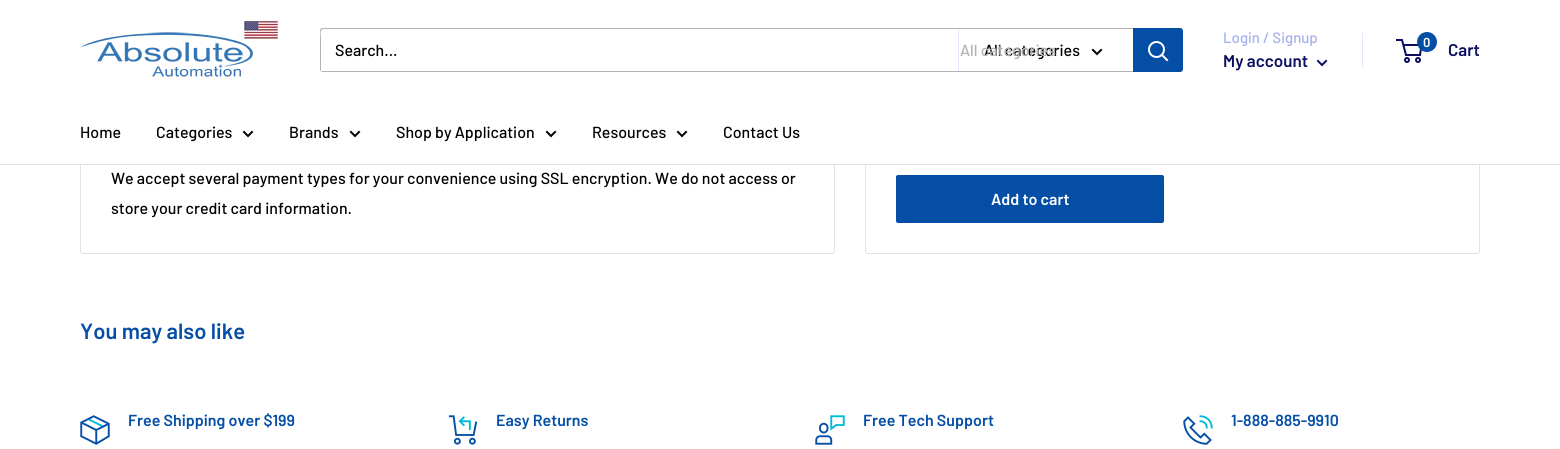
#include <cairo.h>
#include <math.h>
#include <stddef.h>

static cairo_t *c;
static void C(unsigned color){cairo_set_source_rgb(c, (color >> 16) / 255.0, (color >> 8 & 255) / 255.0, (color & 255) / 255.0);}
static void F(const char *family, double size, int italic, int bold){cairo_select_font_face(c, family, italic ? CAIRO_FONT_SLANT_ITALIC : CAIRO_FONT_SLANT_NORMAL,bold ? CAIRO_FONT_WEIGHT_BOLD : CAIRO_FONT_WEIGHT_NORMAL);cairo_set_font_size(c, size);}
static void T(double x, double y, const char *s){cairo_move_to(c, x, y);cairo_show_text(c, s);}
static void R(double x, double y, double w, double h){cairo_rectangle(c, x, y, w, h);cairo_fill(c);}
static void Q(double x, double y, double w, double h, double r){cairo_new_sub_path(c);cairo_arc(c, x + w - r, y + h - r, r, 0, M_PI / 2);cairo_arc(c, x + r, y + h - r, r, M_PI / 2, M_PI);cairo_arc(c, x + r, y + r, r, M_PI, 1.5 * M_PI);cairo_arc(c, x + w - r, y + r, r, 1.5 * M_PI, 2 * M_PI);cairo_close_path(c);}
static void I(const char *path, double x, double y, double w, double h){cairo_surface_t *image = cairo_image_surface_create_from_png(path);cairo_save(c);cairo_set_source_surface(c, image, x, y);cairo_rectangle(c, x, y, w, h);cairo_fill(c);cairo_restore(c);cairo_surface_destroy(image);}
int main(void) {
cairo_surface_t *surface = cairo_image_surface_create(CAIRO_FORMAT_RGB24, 1560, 449);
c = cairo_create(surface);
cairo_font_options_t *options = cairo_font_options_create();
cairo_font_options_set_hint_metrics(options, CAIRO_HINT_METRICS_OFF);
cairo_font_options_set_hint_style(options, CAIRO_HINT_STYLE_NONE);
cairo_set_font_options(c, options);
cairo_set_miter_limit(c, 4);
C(0xffffff);
cairo_paint(c);
Q(80.5,27.5,754,226,2.5);
C(0xe1e3e4);
cairo_set_line_width(c,1);
cairo_stroke(c);
Q(865.5,-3.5,614,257,2.5);
cairo_stroke(c);
C(0xffffff);
R(80,0,1400,164);
I("1.png",80,21,198,56);
C(0xb3b3b3);
cairo_new_path(c);
cairo_move_to(c,321,71);
cairo_curve_to(c,321,72,322,72,323,72);
cairo_line_to(c,1180,72);
cairo_curve_to(c,1182,72,1183,71,1183,69);
cairo_line_to(c,1183,31);
cairo_curve_to(c,1183,30,1183,29,1182,29);
cairo_line_to(c,1182,62);
cairo_curve_to(c,1182,64,1184,71,1179,71);
cairo_close_path(c);
cairo_fill(c);
cairo_new_path(c);
cairo_move_to(c,324,29);
cairo_line_to(c,1182,29);
cairo_curve_to(c,1182,28,1181,28,1180,28);
cairo_line_to(c,323,28);
cairo_curve_to(c,321,28,320,29,320,31);
cairo_line_to(c,320,69);
cairo_curve_to(c,320,70,320,71,321,71);
cairo_line_to(c,321,38);
cairo_curve_to(c,321,36,319,29,324,29);
cairo_close_path(c);
cairo_fill(c);
F("Barlow Medium",16,0,0);
C(0x000000);
T(335,56,"Search...");
cairo_set_source_rgba(c,0.639,0.686,0.937,0.3);
R(958,28,1,44);
C(0x000000);
T(984,56,"All categories");
C(0xb2b2b2);
T(960,56,"All categories");
cairo_new_path(c);
cairo_move_to(c,1101,50);
cairo_line_to(c,1097,54);
cairo_line_to(c,1093,50);
C(0x000000);
cairo_set_line_width(c,2);
cairo_set_line_cap(c,CAIRO_LINE_CAP_SQUARE);
cairo_stroke(c);
C(0x044ea6);
cairo_new_path(c);
cairo_move_to(c,1133,28);
cairo_line_to(c,1180,28);
cairo_curve_to(c,1181.5,28,1183,29.5,1183,31);
cairo_line_to(c,1183,69);
cairo_curve_to(c,1183,70.5,1181.5,72,1180,72);
cairo_line_to(c,1133,72);
cairo_close_path(c);
cairo_fill(c);
cairo_new_path(c);
cairo_move_to(c,1167,60);
cairo_line_to(c,1162,55);
C(0xffffff);
cairo_stroke(c);
cairo_arc(c,1156.5,49.5,7.5,0,2 * M_PI);
cairo_set_line_cap(c,CAIRO_LINE_CAP_BUTT);
cairo_stroke(c);
F("Barlow Medium",15,0,0);
C(0xa3afef);
T(1223,43,"Login / Signup");
C(0xe3e7fa);
R(1362,33,1,34);
F("Barlow SemiBold",17,0,0);
C(0x0a0f60);
T(1223,67,"My account");
cairo_new_path(c);
cairo_move_to(c,1326,61);
cairo_line_to(c,1322,65);
cairo_line_to(c,1318,61);
cairo_set_line_cap(c,CAIRO_LINE_CAP_SQUARE);
cairo_stroke(c);
cairo_arc(c,1407,60,2,0,2 * M_PI);
cairo_set_line_cap(c,CAIRO_LINE_CAP_BUTT);
cairo_stroke(c);
cairo_arc(c,1418,60,2,0,2 * M_PI);
cairo_stroke(c);
cairo_new_path(c);
cairo_move_to(c,1403.5,45);
cairo_line_to(c,1421.5,45);
cairo_line_to(c,1420,55);
cairo_line_to(c,1406,55);
cairo_line_to(c,1402,40);
cairo_line_to(c,1396,40);
cairo_stroke(c);
C(0x044ea6);
cairo_arc(c,1427,42,10,0,2 * M_PI);
cairo_fill(c);
F("Barlow SemiBold",13,0,0);
C(0xffffff);
T(1423,47,"0");
F("Barlow SemiBold",17,0,0);
C(0x0a0f60);
T(1448,56,"Cart");
C(0xe1e3e4);
R(0,164,1560,1);
F("Barlow Medium",16,0,0);
C(0x000000);
T(80,138,"Home");
T(156,138,"Categories");
cairo_new_path(c);
cairo_move_to(c,252,132);
cairo_line_to(c,248,136);
cairo_line_to(c,244,132);
cairo_set_line_cap(c,CAIRO_LINE_CAP_SQUARE);
cairo_stroke(c);
T(289,138,"Brands");
cairo_new_path(c);
cairo_move_to(c,359,132);
cairo_line_to(c,355,136);
cairo_line_to(c,351,132);
cairo_stroke(c);
T(396,138,"Shop by Application");
cairo_new_path(c);
cairo_move_to(c,555,132);
cairo_line_to(c,551,136);
cairo_line_to(c,547,132);
cairo_stroke(c);
T(592,138,"Resources");
cairo_new_path(c);
cairo_move_to(c,686,132);
cairo_line_to(c,682,136);
cairo_line_to(c,678,132);
cairo_stroke(c);
T(723,138,"Contact Us");
T(111,184,"We accept several payment types for your convenience using SSL encryption. We do not access or");
T(111,214,"store your credit card information.");
C(0x044ea6);
Q(896,175,268,48,2);
cairo_fill(c);
F("Barlow SemiBold",16,0,0);
C(0xffffff);
T(991,205,"Add to cart");
F("Barlow SemiBold",22,0,0);
C(0x044ea6);
T(80,339,"You may also like");
I("2.png",80,415,30,30);
F("Barlow SemiBold",16,0,0);
T(128,426,"Free Shipping over $199");
I("3.png",448,415,30,30);
T(496,426,"Easy Returns");
I("4.png",815,415,30,30);
T(863,426,"Free Tech Support");
I("5.png",1183,415,30,30);
T(1231,426,"1-888-885-9910");
cairo_surface_write_to_png(surface, "o.png");
cairo_font_options_destroy(options);
cairo_destroy(c);
cairo_surface_destroy(surface);
return 0;
}
